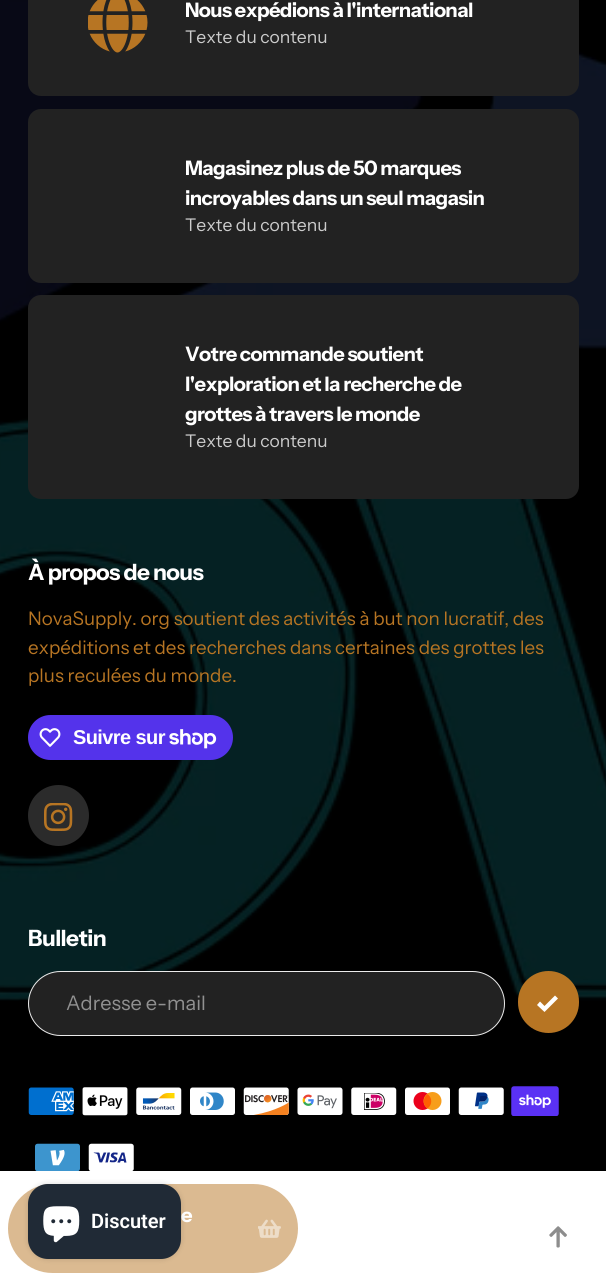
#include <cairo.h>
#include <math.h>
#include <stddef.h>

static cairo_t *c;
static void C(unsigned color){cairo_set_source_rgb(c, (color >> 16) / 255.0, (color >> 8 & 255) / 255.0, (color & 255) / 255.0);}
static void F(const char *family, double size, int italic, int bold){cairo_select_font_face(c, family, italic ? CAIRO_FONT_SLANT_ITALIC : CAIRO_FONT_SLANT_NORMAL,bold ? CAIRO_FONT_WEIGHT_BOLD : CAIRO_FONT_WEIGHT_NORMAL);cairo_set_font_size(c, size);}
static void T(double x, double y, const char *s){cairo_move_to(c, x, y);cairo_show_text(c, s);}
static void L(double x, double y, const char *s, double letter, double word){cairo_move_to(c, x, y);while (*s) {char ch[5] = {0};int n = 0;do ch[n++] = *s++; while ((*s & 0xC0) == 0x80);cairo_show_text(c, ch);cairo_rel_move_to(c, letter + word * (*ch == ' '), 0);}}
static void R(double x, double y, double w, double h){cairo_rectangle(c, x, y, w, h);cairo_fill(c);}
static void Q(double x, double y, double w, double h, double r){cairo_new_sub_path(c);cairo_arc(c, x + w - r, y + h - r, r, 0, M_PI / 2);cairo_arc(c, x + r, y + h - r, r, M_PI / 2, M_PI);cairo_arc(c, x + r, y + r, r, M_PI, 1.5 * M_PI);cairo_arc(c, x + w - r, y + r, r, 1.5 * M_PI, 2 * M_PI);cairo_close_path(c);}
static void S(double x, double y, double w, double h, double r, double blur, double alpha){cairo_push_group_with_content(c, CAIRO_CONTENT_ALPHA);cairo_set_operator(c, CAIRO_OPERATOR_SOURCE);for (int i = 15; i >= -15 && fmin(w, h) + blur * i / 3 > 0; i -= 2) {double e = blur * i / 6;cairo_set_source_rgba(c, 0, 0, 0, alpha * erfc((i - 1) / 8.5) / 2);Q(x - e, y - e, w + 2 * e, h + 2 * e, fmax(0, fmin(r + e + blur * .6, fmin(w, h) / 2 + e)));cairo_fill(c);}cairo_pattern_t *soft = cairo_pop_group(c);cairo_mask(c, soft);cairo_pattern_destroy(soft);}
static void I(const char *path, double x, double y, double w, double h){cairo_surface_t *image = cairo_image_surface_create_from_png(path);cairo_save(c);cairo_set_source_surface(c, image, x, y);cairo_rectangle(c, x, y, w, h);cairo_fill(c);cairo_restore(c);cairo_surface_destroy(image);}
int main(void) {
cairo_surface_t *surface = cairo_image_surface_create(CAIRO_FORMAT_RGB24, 606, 1285);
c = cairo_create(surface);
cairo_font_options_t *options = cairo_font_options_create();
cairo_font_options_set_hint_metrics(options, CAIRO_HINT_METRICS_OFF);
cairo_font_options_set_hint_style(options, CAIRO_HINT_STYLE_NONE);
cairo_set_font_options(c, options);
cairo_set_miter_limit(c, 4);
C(0x000000);
cairo_paint(c);
I("1.png",0,0,606,1001);
C(0x222222);
Q(28,-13,551,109,13);
cairo_fill(c);
I("2.png",88,0,60,53);
F("Instrument Sans",20,0,1);
C(0xffffff);
L(185,17,"Nous expédions à l'international",-.6,0);
F("Instrument Sans",17.5,0,0);
C(0xcccccc);
T(185,43,"Texte du contenu");
C(0x222222);
Q(28,109,551,174,13);
cairo_fill(c);
F("Instrument Sans",20,0,1);
C(0xffffff);
L(185,175,"Magasinez plus de 50 marques",-.6,0);
L(185,205,"incroyables dans un seul magasin",-.6,0);
F("Instrument Sans",17.5,0,0);
C(0xcccccc);
T(185,231,"Texte du contenu");
C(0x222222);
Q(28,295,551,204,13);
cairo_fill(c);
F("Instrument Sans",20,0,1);
C(0xffffff);
L(185,361,"Votre commande soutient",-.6,0);
L(185,391,"l'exploration et la recherche de",-.6,0);
L(185,421,"grottes à travers le monde",-.6,0);
F("Instrument Sans",17.5,0,0);
C(0xcccccc);
T(185,447,"Texte du contenu");
F("Instrument Sans",22.5,0,1);
C(0xffffff);
L(28,580,"À propos de nous",-.6,0);
F("Instrument Sans",18.75,0,0);
C(0xb77523);
T(28,625,"NovaSupply. org soutient des activités à but non lucratif, des");
T(28,654,"expéditions et des recherches dans certaines des grottes les");
T(28,682,"plus reculées du monde.");
C(0x5433eb);
Q(28,715,205,45,22.5);
cairo_fill(c);
I("3.png",39,728,22,19);
F("Liberation Sans",20,0,1);
C(0xffffff);
L(73,744,"Suivre sur",-.6,0);
I("4.png",169,729,48,20);
C(0x2b2b2b);
cairo_arc(c,58.5,815.5,30.5,0,2 * M_PI);
cairo_fill(c);
I("5.png",44,803,29,28);
F("Instrument Sans",22.5,0,1);
C(0xffffff);
L(28,946,"Bulletin",-.6,0);
C(0x222222);
Q(28.5,971.5,476,64,32);
cairo_fill_preserve(c);
C(0xebebeb);
cairo_set_line_width(c,1);
cairo_stroke(c);
F("Instrument Sans",20,0,0);
C(0x919191);
T(66,1010,"Adresse e-mail");
C(0xb77523);
Q(518,971,61,62,30.5);
cairo_fill(c);
C(0xffffff);
cairo_new_path(c);
cairo_move_to(c,544.5,1012);
cairo_line_to(c,537,1005);
cairo_line_to(c,540,1001.5);
cairo_line_to(c,544.5,1006);
cairo_line_to(c,555,995.5);
cairo_line_to(c,558,998.5);
cairo_close_path(c);
cairo_fill(c);
I("6.png",28,1087,46,28);
I("7.png",82,1087,46,29);
I("8.png",136,1087,46,28);
I("9.png",190,1087,45,28);
I("10.png",243,1087,46,28);
I("11.png",297,1087,46,28);
I("12.png",351,1087,46,28);
I("13.png",405,1087,45,28);
I("14.png",458,1087,46,28);
I("15.png",511,1086,48,30);
I("16.png",35,1143,45,28);
I("17.png",88,1143,46,28);
R(0,1171,606,114);
C(0xdbba91);
Q(8,1184,290,89,44.5);
cairo_fill(c);
F("Instrument Sans",20,0,1);
C(0xffffff);
T(181,1222,"e");
I("18.png",258,1219,23,19);
C(0x000000);
S(28,1184,153,75,20,3,.15);
C(0x202a36);
Q(28,1184,153,75,20);
cairo_fill(c);
I("19.png",43,1206,37,37);
F("Roboto SemiBold",20,0,0);
C(0xffffff);
T(91,1228,"Discuter");
I("20.png",549,1226,18,22);
cairo_surface_write_to_png(surface, "o.png");
cairo_font_options_destroy(options);
cairo_destroy(c);
cairo_surface_destroy(surface);
return 0;
}
